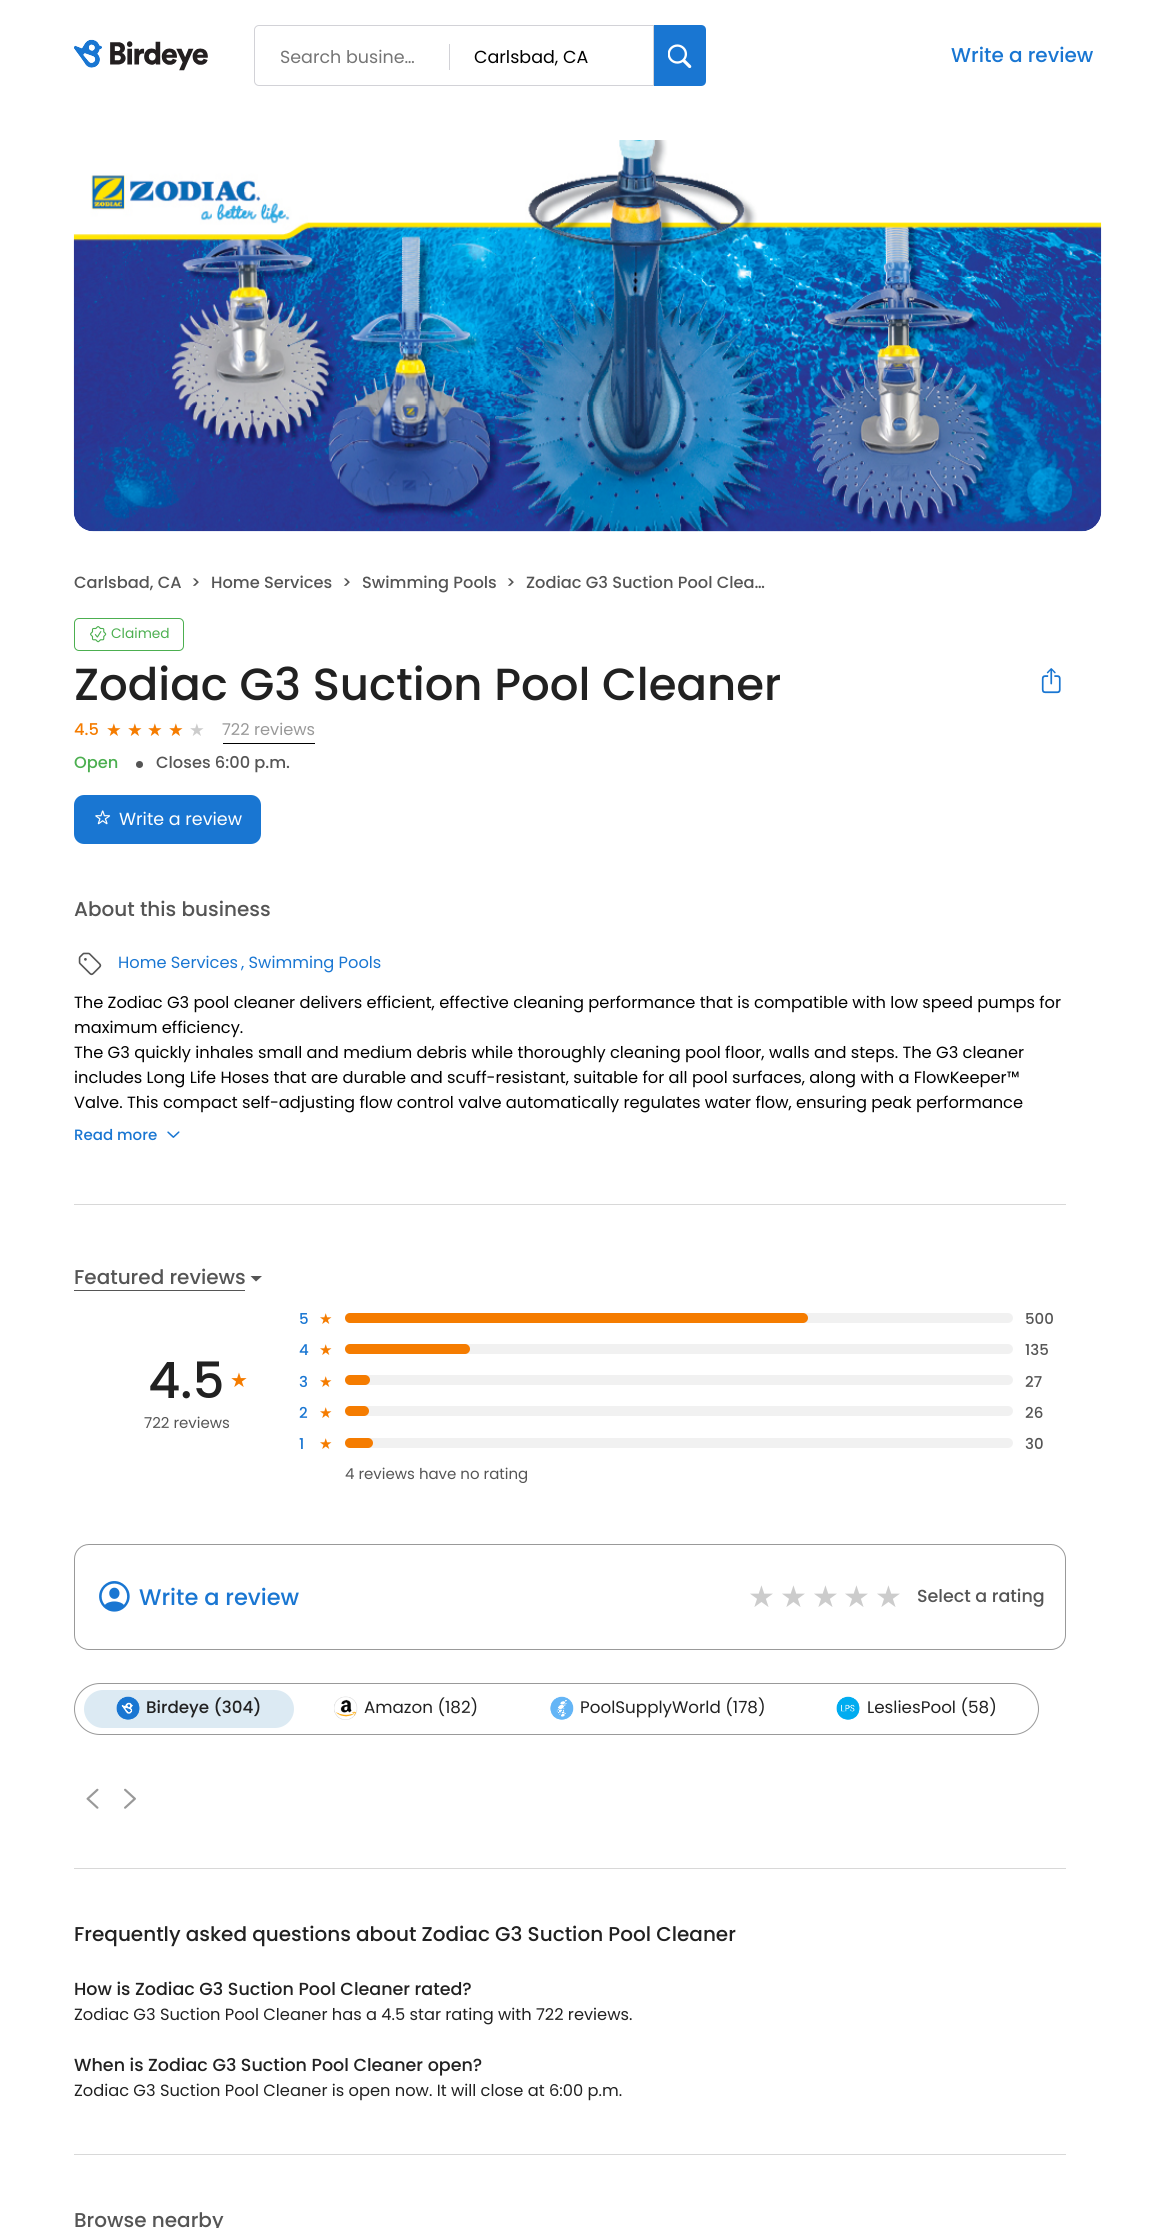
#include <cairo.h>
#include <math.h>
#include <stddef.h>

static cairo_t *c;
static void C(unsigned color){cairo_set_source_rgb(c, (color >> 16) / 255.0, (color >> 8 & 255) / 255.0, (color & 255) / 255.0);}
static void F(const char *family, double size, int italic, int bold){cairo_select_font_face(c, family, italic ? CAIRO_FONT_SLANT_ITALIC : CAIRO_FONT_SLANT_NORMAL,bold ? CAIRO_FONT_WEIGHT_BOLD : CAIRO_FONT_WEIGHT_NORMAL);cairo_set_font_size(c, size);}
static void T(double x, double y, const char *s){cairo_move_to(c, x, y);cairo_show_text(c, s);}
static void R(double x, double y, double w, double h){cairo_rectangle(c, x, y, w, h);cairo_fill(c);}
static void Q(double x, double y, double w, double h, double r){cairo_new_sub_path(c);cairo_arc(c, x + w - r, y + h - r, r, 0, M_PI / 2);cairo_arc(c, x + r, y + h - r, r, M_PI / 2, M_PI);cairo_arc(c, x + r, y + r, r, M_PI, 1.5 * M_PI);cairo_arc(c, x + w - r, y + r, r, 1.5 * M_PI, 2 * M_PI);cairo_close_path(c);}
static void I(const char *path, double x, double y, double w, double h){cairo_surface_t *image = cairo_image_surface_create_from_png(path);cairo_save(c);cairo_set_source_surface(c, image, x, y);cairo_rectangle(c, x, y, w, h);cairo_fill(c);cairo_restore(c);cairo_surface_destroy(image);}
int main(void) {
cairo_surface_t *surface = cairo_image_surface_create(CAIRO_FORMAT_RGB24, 1174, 2228);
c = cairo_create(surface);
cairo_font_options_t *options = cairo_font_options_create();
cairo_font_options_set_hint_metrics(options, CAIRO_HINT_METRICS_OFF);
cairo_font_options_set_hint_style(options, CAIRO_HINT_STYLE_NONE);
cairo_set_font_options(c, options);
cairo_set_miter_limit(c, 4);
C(0xffffff);
cairo_paint(c);
I("1.png",74,39,134,32);
cairo_new_path(c);
cairo_move_to(c,259,25.5);
cairo_line_to(c,653.5,25.5);
cairo_line_to(c,653.5,85.5);
cairo_line_to(c,259,85.5);
cairo_curve_to(c,256.5,85.5,254.5,83.5,254.5,81);
cairo_line_to(c,254.5,30);
cairo_curve_to(c,254.5,27.5,256.5,25.5,259,25.5);
cairo_close_path(c);
C(0xd2d2d7);
cairo_set_line_width(c,1);
cairo_stroke(c);
R(449,44,1,26);
F("Poppins",17.5,0,0);
C(0x757575);
T(280,63,"Search busine…");
C(0x000000);
T(474,63,"Carlsbad, CA");
C(0x1976d2);
cairo_new_path(c);
cairo_move_to(c,654,25);
cairo_line_to(c,701,25);
cairo_curve_to(c,704,25,706,27,706,30);
cairo_line_to(c,706,81);
cairo_curve_to(c,706,84,704,86,701,86);
cairo_line_to(c,654,86);
cairo_close_path(c);
cairo_fill(c);
I("2.png",668,44,24,25);
F("Poppins Medium",20,0,0);
T(951,62,"Write a review");
I("3.png",73,140,1029,392);
I("4.png",74,140,1027,392);
F("Poppins Medium",16.25,0,0);
C(0x555555);
T(74,588,"Carlsbad, CA");
T(191,588,">");
T(211,588,"Home Services");
T(342,588,">");
T(362,588,"Swimming Pools");
T(506,588,">");
T(526,588,"Zodiac G3 Suction Pool Clea…");
Q(74.5,618.5,109,32,4.5);
C(0x4caf50);
cairo_stroke(c);
I("5.png",90,626,17,17);
F("Poppins",13.75,0,0);
T(111,638,"Claimed");
F("Poppins Medium",45,0,0);
C(0x212121);
T(74,700,"Zodiac G3 Suction Pool Cleaner");
I("6.png",1041,668,20,26);
F("Poppins Medium",16.25,0,0);
C(0xf57c00);
T(74,735,"4.5");
F("DejaVu Sans",17.5,0,0);
T(106,736,"★");
T(127,736,"★");
T(147,736,"★");
T(168,736,"★");
C(0xcccccc);
T(189,736,"★");
C(0x000000);
R(223,743,92,1);
F("Poppins",16.25,0,0);
C(0x999999);
T(222,735,"722 reviews");
F("Poppins Medium",16.25,0,0);
C(0x4caf50);
T(74,768,"Open");
C(0x555555);
cairo_new_path(c);
cairo_arc(c,139.5,764.5,3.5,0,2 * M_PI);
cairo_fill(c);
T(156,768,"Closes 6:00 p.m.");
C(0x1976d2);
Q(74,795,187,49,10);
cairo_fill(c);
I("7.png",95,810,16,15);
F("Poppins",17.5,0,0);
C(0xffffff);
T(119,825,"Write a review");
F("Poppins Medium",20,0,0);
C(0x555555);
T(74,916,"About this business");
I("8.png",78,952,24,24);
F("Poppins",16.25,0,0);
C(0x1976d2);
T(118,968,"Home Services");
T(241,968,", Swimming Pools");
C(0x000000);
T(74,1008,"The Zodiac G3 pool cleaner delivers efficient, effective cleaning performance that is compatible with low speed pumps for");
T(74,1033,"maximum efficiency.");
T(74,1058,"The G3 quickly inhales small and medium debris while thoroughly cleaning pool floor, walls and steps. The G3 cleaner");
T(74,1083,"includes Long Life Hoses that are durable and scuff-resistant, suitable for all pool surfaces, along with a FlowKeeper™");
T(74,1108,"Valve. This compact self-adjusting flow control valve automatically regulates water flow, ensuring peak performance");
F("Poppins Medium",15,0,0);
C(0x1976d2);
T(74,1140,"Read more");
I("9.png",167,1131,13,7);
C(0xd8d8d8);
R(74,1204,992,1);
C(0x555555);
R(74,1290,171,1);
F("Poppins Medium",20,0,0);
T(74,1284,"Featured reviews");
cairo_new_path(c);
cairo_move_to(c,250.5,1276);
cairo_line_to(c,256,1281.5);
cairo_line_to(c,262,1276);
cairo_close_path(c);
cairo_fill(c);
F("Poppins Medium",50,0,0);
C(0x212121);
T(148,1398,"4.5");
F("DejaVu Sans",20,0,0);
C(0xf57c00);
T(230,1387,"★");
F("Poppins",15,0,0);
C(0x555555);
T(144,1428,"722 reviews");
F("Poppins Medium",15,0,0);
C(0x1976d2);
T(299,1324,"5");
F("DejaVu Sans",15,0,0);
C(0xf57c00);
T(319,1324,"★");
C(0xf1f1f1);
Q(345,1313,668,10,5);
cairo_fill(c);
C(0xf57c00);
Q(345,1313,463,10,5);
cairo_fill(c);
F("Poppins Medium",15,0,0);
C(0x555555);
T(1025,1324,"500");
C(0x1976d2);
T(299,1355,"4");
F("DejaVu Sans",15,0,0);
C(0xf57c00);
T(319,1355,"★");
C(0xf1f1f1);
Q(345,1344,668,10,5);
cairo_fill(c);
C(0xf57c00);
Q(345,1344,125,10,5);
cairo_fill(c);
F("Poppins Medium",15,0,0);
C(0x555555);
T(1025,1355,"135");
C(0x1976d2);
T(299,1387,"3");
F("DejaVu Sans",15,0,0);
C(0xf57c00);
T(319,1387,"★");
C(0xf1f1f1);
Q(345,1375,668,10,5);
cairo_fill(c);
C(0xf57c00);
Q(345,1375,25,10,5);
cairo_fill(c);
F("Poppins Medium",15,0,0);
C(0x555555);
T(1025,1387,"27");
C(0x1976d2);
T(299,1418,"2");
F("DejaVu Sans",15,0,0);
C(0xf57c00);
T(319,1418,"★");
C(0xf1f1f1);
Q(345,1406,668,10,5);
cairo_fill(c);
C(0xf57c00);
Q(345,1406,24,10,5);
cairo_fill(c);
F("Poppins Medium",15,0,0);
C(0x555555);
T(1025,1418,"26");
C(0x1976d2);
T(299,1449,"1");
F("DejaVu Sans",15,0,0);
C(0xf57c00);
T(319,1449,"★");
C(0xf1f1f1);
Q(345,1438,668,10,5);
cairo_fill(c);
C(0xf57c00);
Q(345,1438,28,10,5);
cairo_fill(c);
F("Poppins Medium",15,0,0);
C(0x555555);
T(1025,1449,"30");
F("Poppins",15,0,0);
T(345,1479,"4 reviews have no rating");
Q(74.5,1544.5,991,105,14.5);
C(0x999999);
cairo_stroke(c);
I("10.png",99,1581,31,31);
F("Poppins Medium",22.5,0,0);
C(0x1976d2);
T(139,1605,"Write a review");
F("DejaVu Sans",30,0,0);
C(0xcccccc);
T(748,1607,"★");
T(780,1607,"★");
T(812,1607,"★");
T(843,1607,"★");
T(875,1607,"★");
F("Poppins Medium",17.5,0,0);
C(0x555555);
T(917,1602,"Select a rating");
Q(74.5,1683.5,964,51,25.5);
C(0x999999);
cairo_stroke(c);
C(0xdceaf3);
Q(84,1690,210,38,19);
cairo_fill(c);
I("11.png",116,1696,24,24);
F("Poppins Medium",16.75,0,0);
C(0x212121);
T(146,1713,"Birdeye (304)");
I("12.png",334,1696,24,24);
F("Poppins",16.75,0,0);
T(364,1713,"Amazon (182)");
I("13.png",550,1696,24,24);
T(580,1713,"PoolSupplyWorld (178)");
I("14.png",836,1696,24,24);
T(867,1713,"LesliesPool (58)");
I("15.png",86,1788,13,21);
I("16.png",124,1788,12,21);
C(0xd8d8d8);
R(74,1868,992,1);
F("Poppins Medium",20,0,0);
C(0x212121);
T(74,1941,"Frequently asked questions about Zodiac G3 Suction Pool Cleaner");
F("Poppins Medium",17.5,0,0);
T(74,1995,"How is Zodiac G3 Suction Pool Cleaner rated?");
F("Poppins",16.25,0,0);
T(74,2020,"Zodiac G3 Suction Pool Cleaner has a 4.5 star rating with 722 reviews.");
F("Poppins Medium",17.5,0,0);
T(74,2071,"When is Zodiac G3 Suction Pool Cleaner open?");
F("Poppins",16.25,0,0);
T(74,2096,"Zodiac G3 Suction Pool Cleaner is open now. It will close at 6:00 p.m.");
C(0xd8d8d8);
R(74,2154,992,1);
F("Poppins Medium",20,0,0);
C(0x555555);
T(74,2227,"Browse nearby");
cairo_surface_write_to_png(surface, "o.png");
cairo_font_options_destroy(options);
cairo_destroy(c);
cairo_surface_destroy(surface);
return 0;
}
